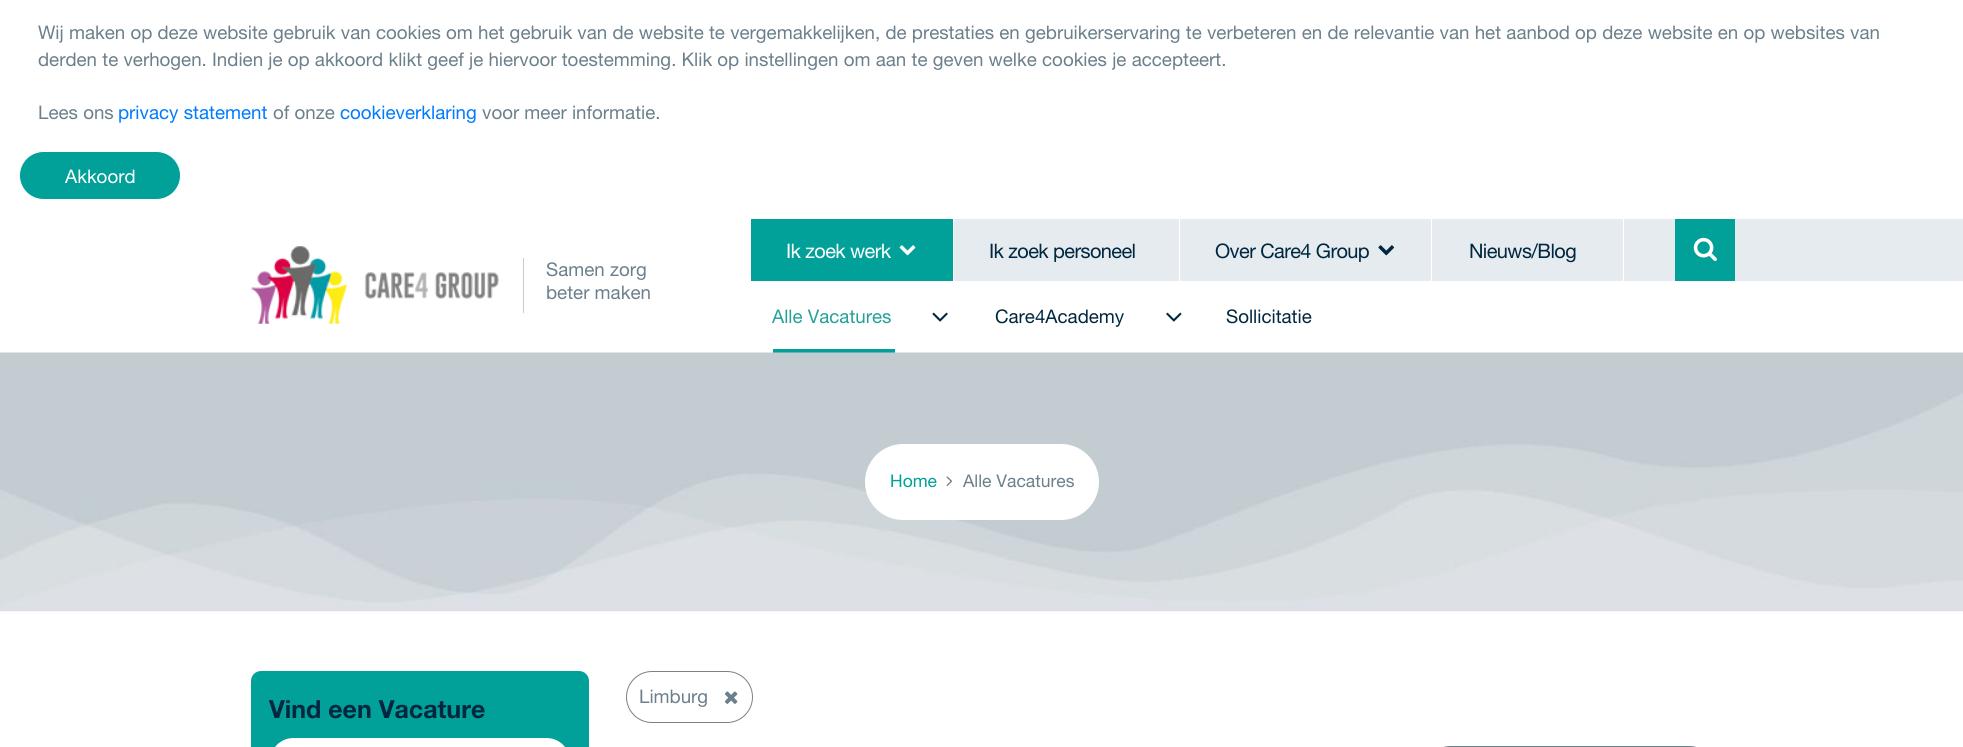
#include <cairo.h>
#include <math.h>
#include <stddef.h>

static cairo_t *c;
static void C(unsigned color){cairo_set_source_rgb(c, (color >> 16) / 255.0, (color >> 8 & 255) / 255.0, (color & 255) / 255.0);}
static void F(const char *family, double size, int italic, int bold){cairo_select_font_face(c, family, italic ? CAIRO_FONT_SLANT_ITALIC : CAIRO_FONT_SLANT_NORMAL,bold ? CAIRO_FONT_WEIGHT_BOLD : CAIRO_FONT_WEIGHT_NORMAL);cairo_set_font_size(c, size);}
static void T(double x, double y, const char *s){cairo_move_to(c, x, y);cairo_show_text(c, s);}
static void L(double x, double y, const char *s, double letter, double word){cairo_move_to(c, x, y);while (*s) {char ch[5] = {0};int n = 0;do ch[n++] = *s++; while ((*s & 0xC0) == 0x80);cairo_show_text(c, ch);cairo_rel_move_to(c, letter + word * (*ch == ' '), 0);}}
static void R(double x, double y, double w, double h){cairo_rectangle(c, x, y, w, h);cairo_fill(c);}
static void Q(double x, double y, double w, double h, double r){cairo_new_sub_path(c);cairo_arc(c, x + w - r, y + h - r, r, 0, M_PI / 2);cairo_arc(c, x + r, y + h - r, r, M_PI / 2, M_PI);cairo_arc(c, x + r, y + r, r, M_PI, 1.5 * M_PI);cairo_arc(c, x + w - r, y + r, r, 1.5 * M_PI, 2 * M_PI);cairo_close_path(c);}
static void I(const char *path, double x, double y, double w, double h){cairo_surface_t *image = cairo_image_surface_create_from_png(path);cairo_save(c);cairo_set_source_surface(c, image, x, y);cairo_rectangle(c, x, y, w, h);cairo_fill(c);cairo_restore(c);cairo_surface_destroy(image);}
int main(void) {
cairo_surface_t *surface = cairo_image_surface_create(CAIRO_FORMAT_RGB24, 1963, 747);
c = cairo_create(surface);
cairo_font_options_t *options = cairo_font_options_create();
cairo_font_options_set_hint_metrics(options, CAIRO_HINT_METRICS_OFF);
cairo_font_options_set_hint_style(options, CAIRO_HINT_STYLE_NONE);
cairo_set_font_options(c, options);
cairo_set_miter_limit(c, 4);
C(0xffffff);
cairo_paint(c);
F("Helvetica Neue",18.75,0,0);
C(0x6c808c);
T(38,39,"Wij maken op deze website gebruik van cookies om het gebruik van de website te vergemakkelijken, de prestaties en gebruikerservaring te verbeteren en de relevantie van het aanbod op deze website en op websites van");
T(38,66,"derden te verhogen. Indien je op akkoord klikt geef je hiervoor toestemming. Klik op instellingen om aan te geven welke cookies je accepteert.");
T(38,119,"Lees ons");
C(0x007bff);
T(118,119,"privacy statement");
C(0x6c808c);
T(273,119,"of onze");
C(0x007bff);
T(340,119,"cookieverklaring");
C(0x6c808c);
T(482,119,"voor meer informatie.");
C(0x01a199);
Q(19.5,151.5,161,48,24);
cairo_fill_preserve(c);
C(0xffffff);
cairo_set_line_width(c,1);
cairo_stroke(c);
T(65,183,"Akkoord");
I("1.png",251,246,248,78);
C(0xc3ccd1);
R(523,258,1,55);
C(0x6c808c);
T(546,276,"Samen zorg");
T(546,299,"beter maken");
C(0xe5ebef);
R(954,219,1009,62);
C(0x01a199);
R(751,219,202,62);
F("Helvetica Neue",20,0,0);
C(0xffffff);
L(786,258,"Ik zoek werk",-.6,0);
I("2.png",899,245,17,11);
R(1179,219,1,62);
C(0x00273f);
L(989,258,"Ik zoek personeel",-.6,0);
C(0xffffff);
R(1431,219,1,62);
C(0x00273f);
L(1215,258,"Over Care4 Group",-.6,0);
I("3.png",1378,245,17,11);
C(0xffffff);
R(1623,219,1,62);
C(0x00273f);
L(1469,258,"Nieuws/Blog",-.6,0);
C(0x01a199);
R(1675,219,60,62);
I("4.png",1693,237,24,25);
F("Helvetica Neue",18.75,0,0);
C(0x26a199);
T(772,323,"Alle Vacatures");
C(0x01a199);
R(773,349,122,4);
I("5.png",932,312,16,10);
C(0x00273f);
T(995,323,"Care4Academy");
I("6.png",1166,312,16,10);
T(1226,323,"Sollicitatie");
I("7.png",0,352,1963,260);
C(0xffffff);
Q(865,444,234,76,38);
cairo_fill(c);
F("Helvetica Neue",17.5,0,0);
C(0x01a199);
T(890,487,"Home");
I("8.png",946,476,7,11);
C(0x6c808c);
T(963,487,"Alle Vacatures");
Q(626.5,671.5,126,51,25.5);
C(0x808080);
cairo_stroke(c);
F("Helvetica Neue",18.75,0,0);
C(0x6c808c);
T(639,703,"Limburg");
I("9.png",724,691,14,13);
Q(1426.5,746.5,287,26,24);
cairo_stroke(c);
C(0x01a199);
Q(251,671,338,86,10);
cairo_fill(c);
F("Helvetica Neue",25,0,1);
C(0x00273f);
T(269,718,"Vind een Vacature");
C(0xffffff);
Q(270,738,300,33,23.5);
cairo_fill(c);
cairo_surface_write_to_png(surface, "o.png");
cairo_font_options_destroy(options);
cairo_destroy(c);
cairo_surface_destroy(surface);
return 0;
}
